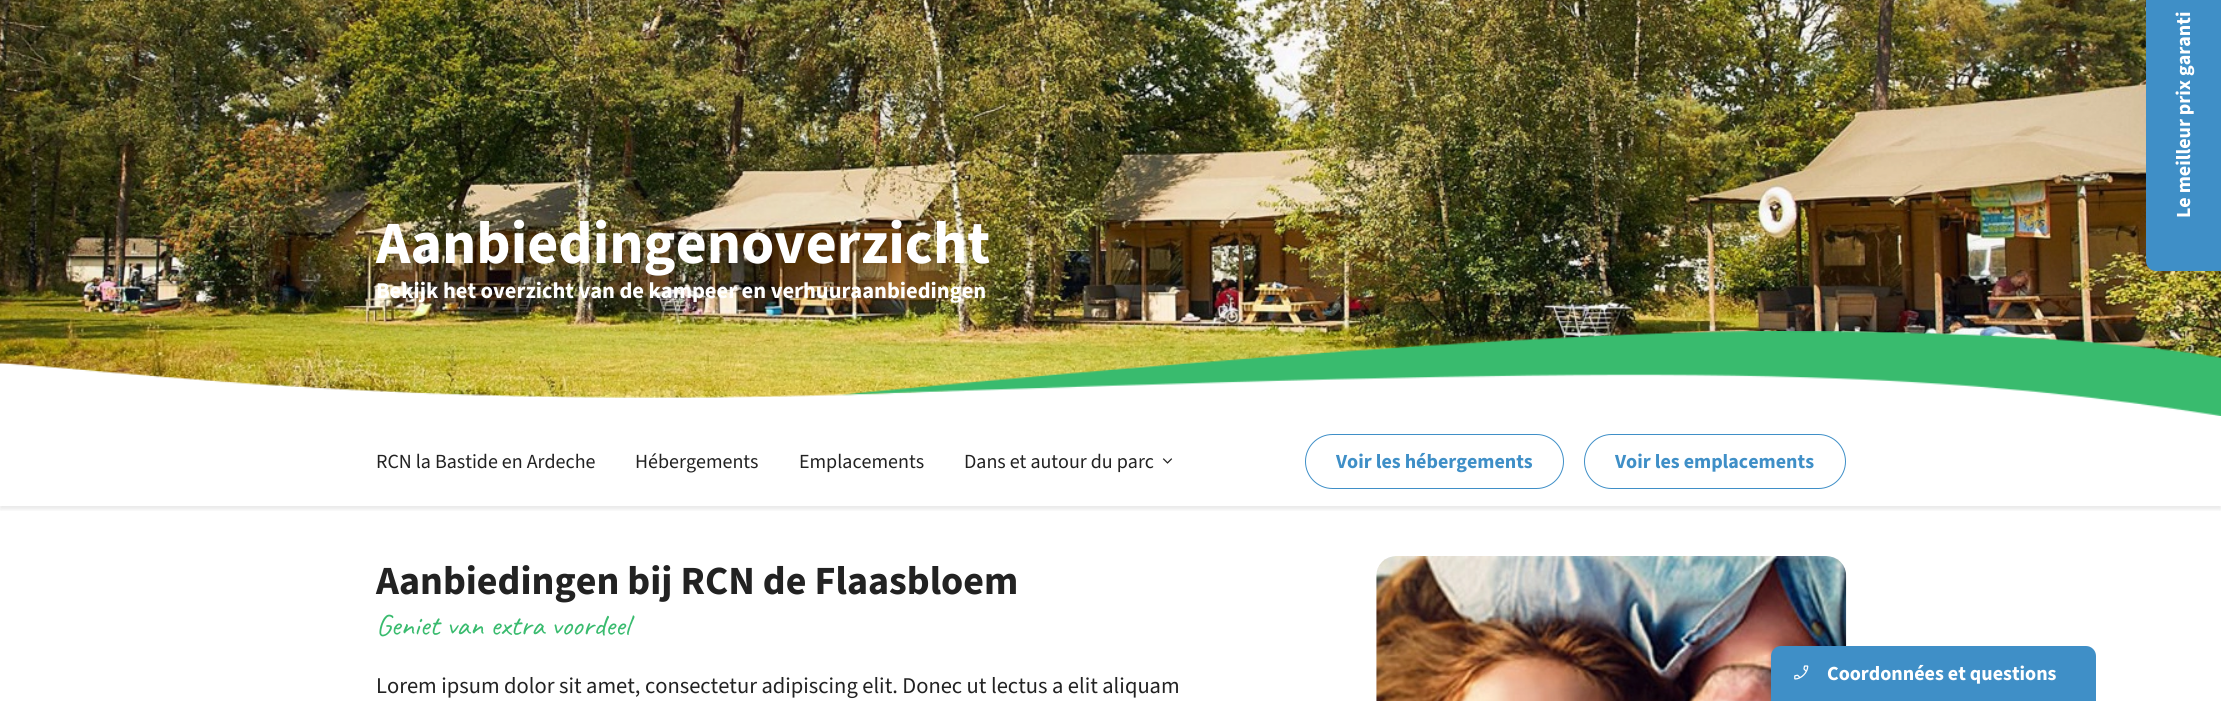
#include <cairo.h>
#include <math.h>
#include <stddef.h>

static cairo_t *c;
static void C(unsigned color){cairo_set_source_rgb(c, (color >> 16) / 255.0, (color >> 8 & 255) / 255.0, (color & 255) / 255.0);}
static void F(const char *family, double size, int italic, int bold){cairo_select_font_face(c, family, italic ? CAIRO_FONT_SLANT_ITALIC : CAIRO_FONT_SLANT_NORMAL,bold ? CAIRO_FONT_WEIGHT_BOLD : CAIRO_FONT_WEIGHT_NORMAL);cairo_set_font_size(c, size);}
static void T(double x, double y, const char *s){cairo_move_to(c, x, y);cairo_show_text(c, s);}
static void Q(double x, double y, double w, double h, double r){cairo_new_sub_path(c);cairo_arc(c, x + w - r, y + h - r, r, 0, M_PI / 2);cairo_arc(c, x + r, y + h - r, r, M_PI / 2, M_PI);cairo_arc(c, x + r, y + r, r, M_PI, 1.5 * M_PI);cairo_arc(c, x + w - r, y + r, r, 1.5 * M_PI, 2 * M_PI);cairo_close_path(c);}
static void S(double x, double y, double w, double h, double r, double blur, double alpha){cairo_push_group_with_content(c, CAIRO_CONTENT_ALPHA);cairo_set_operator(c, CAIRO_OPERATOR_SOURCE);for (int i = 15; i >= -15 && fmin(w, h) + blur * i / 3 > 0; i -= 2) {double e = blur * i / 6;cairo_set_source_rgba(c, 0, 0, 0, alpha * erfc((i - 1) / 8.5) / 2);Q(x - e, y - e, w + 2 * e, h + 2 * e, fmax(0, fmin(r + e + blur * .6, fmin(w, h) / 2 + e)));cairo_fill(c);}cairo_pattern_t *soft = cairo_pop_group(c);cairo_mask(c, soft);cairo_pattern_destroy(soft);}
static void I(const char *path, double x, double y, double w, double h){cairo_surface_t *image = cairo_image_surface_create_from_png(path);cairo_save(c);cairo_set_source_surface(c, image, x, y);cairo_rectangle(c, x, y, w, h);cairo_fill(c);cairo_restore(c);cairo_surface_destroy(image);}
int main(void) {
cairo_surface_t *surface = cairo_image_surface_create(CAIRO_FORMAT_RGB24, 2221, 701);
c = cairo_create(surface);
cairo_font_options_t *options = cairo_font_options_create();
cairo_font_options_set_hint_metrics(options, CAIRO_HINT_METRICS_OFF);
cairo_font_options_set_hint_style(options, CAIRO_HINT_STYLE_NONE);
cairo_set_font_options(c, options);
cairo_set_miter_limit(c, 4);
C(0xffffff);
cairo_paint(c);
I("1.png",0,0,2221,398);
C(0x3f8fc7);
cairo_new_path(c);
cairo_move_to(c,2146,261);
cairo_line_to(c,2146,-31);
cairo_curve_to(c,2146,-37,2151,-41,2156,-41);
cairo_line_to(c,2221,-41);
cairo_line_to(c,2221,271);
cairo_line_to(c,2156,271);
cairo_curve_to(c,2151,271,2146,267,2146,261);
cairo_close_path(c);
cairo_fill(c);
F("Source Sans 3",20,0,1);
C(0xffffff);
cairo_save(c);
cairo_translate(c,2190,218);
cairo_rotate(c,-90 * M_PI / 180);
T(0,0,"Le meilleur prix garanti");
cairo_restore(c);
F("Source Sans 3",60,0,1);
T(376,263,"Aanbiedingenoverzicht");
F("Source Sans 3",22.5,0,1);
T(376,298,"Bekijk het overzicht van de kampeer en verhuuraanbiedingen");
I("2.png",0,331,2221,85);
cairo_save(c);
cairo_rectangle(c,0,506,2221,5);
cairo_clip(c);
C(0x000000);
S(0,419,2221,90,0,2.5,.1);
cairo_restore(c);
F("Source Sans 3",20,0,0);
C(0x222222);
T(376,468,"RCN la Bastide en Ardeche");
T(635,468,"Hébergements");
T(799,468,"Emplacements");
T(964,468,"Dans et autour du parc");
I("3.png",1162,458,11,6);
Q(1305.5,434.5,258,54,27);
C(0x3f8fc7);
cairo_set_line_width(c,1);
cairo_stroke(c);
F("Source Sans 3",20,0,1);
T(1336,468,"Voir les hébergements");
Q(1584.5,434.5,261,54,27);
cairo_stroke(c);
T(1615,468,"Voir les emplacements");
F("Source Sans 3",40,0,1);
C(0x222222);
T(376,594,"Aanbiedingen bij RCN de Flaasbloem");
F("Caveat",30,0,0);
C(0x39bb6e);
T(376,635,"Geniet van extra voordeel");
F("Source Sans 3",22.5,0,0);
C(0x222222);
T(376,693,"Lorem ipsum dolor sit amet, consectetur adipiscing elit. Donec ut lectus a elit aliquam");
I("4.png",1376,556,471,145);
C(0x3f8fc7);
cairo_new_path(c);
cairo_move_to(c,1781,646);
cairo_line_to(c,2086,646);
cairo_curve_to(c,2091.5,646,2096,650.5,2096,656);
cairo_line_to(c,2096,701);
cairo_line_to(c,1771,701);
cairo_line_to(c,1771,656);
cairo_curve_to(c,1771,650.5,1775.5,646,1781,646);
cairo_close_path(c);
cairo_fill(c);
I("5.png",1794,665,15,15);
F("Source Sans 3",20,0,1);
C(0xffffff);
T(1827,680,"Coordonnées et questions");
cairo_surface_write_to_png(surface, "o.png");
cairo_font_options_destroy(options);
cairo_destroy(c);
cairo_surface_destroy(surface);
return 0;
}
